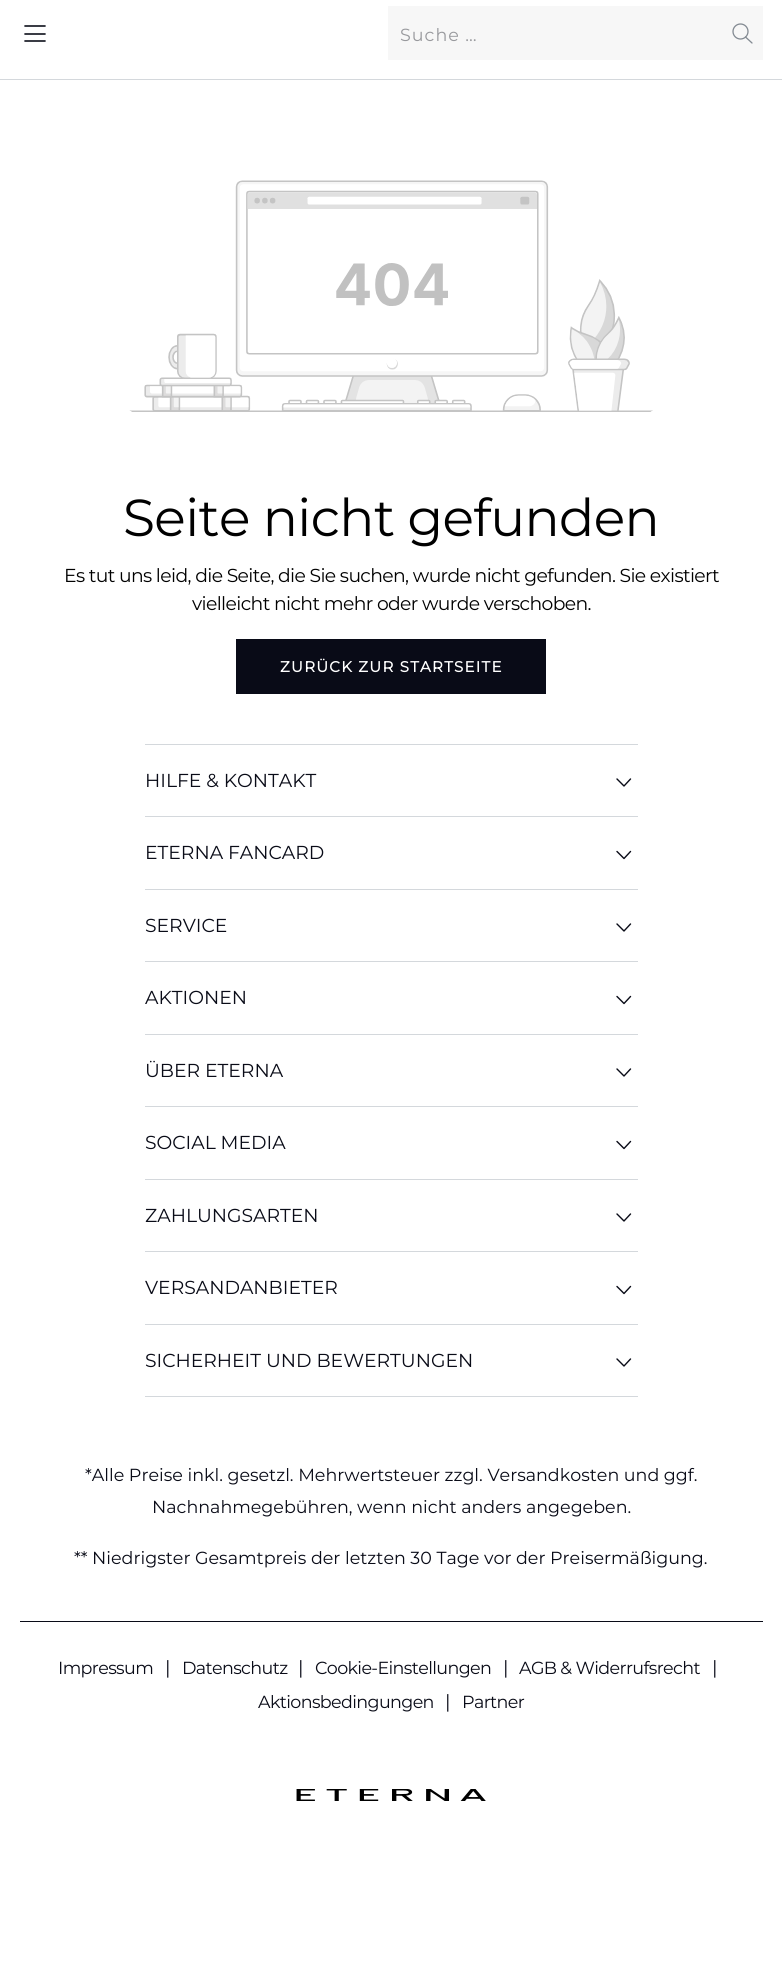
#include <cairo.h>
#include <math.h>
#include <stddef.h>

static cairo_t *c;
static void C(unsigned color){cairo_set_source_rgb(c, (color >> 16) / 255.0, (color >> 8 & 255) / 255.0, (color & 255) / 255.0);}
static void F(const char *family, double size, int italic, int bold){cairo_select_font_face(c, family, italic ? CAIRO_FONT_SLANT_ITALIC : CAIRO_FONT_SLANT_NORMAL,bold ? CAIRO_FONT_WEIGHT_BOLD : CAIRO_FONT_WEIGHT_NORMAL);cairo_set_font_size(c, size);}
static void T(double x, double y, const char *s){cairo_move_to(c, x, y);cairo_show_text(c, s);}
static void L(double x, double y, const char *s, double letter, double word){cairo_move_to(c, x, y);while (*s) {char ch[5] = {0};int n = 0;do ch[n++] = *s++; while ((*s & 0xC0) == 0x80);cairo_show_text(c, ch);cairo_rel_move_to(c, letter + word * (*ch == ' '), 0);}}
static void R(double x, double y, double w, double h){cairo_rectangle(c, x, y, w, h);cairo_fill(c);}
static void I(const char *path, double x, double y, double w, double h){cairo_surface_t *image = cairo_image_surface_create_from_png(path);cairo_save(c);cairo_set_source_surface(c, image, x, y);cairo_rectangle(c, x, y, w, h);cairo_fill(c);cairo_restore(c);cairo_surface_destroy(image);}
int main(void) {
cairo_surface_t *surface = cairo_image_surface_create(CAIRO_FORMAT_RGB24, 782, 1971);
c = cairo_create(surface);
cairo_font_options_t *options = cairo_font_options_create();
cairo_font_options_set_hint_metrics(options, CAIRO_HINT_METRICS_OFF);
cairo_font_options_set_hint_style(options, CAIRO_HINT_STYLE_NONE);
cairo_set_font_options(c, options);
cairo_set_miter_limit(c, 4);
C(0xffffff);
cairo_paint(c);
C(0xd4d8dc);
R(0,79,782,1);
cairo_new_path(c);
cairo_move_to(c,25,26);
cairo_line_to(c,45,26);
cairo_move_to(c,25,34);
cairo_line_to(c,45,34);
cairo_move_to(c,25,41);
cairo_line_to(c,45,41);
C(0x090b17);
cairo_set_line_width(c,1.6);
cairo_set_line_cap(c,CAIRO_LINE_CAP_ROUND);
cairo_set_line_join(c,CAIRO_LINE_JOIN_ROUND);
cairo_stroke(c);
C(0xf7f7f7);
R(388,6,375,54);
F("Montserrat",17.5,0,0);
C(0x98999d);
L(400,41,"Suche …",1,0);
cairo_new_path(c);
cairo_arc(c,740.5,31.5,7.5,0,2 * M_PI);
C(0x838a92);
cairo_set_line_width(c,1.3);
cairo_set_line_cap(c,CAIRO_LINE_CAP_BUTT);
cairo_set_line_join(c,CAIRO_LINE_JOIN_MITER);
cairo_stroke(c);
cairo_new_path(c);
cairo_move_to(c,752,43);
cairo_line_to(c,745.5,37);
cairo_set_line_cap(c,CAIRO_LINE_CAP_ROUND);
cairo_set_line_join(c,CAIRO_LINE_JOIN_ROUND);
cairo_stroke(c);
I("1.png",129,180,524,232);
F("Montserrat",52,0,0);
C(0x000000);
L(123,536,"Seite nicht gefunden",-.62,0);
F("Montserrat",18.75,0,0);
L(64,582,"Es tut uns leid, die Seite, die Sie suchen, wurde nicht gefunden. Sie existiert",-.62,0);
L(192,610,"vielleicht nicht mehr oder wurde verschoben.",-.62,0);
C(0x090b17);
R(236,639,310,55);
F("Montserrat",15,0,1);
C(0xffffff);
L(280,672,"ZURÜCK ZUR STARTSEITE",1.25,0);
C(0xd4d8dc);
R(145,744,493,1);
F("Montserrat",18.75,0,0);
C(0x090b17);
T(145,787,"HILFE & KONTAKT");
cairo_new_path(c);
cairo_move_to(c,617,779);
cairo_line_to(c,624,786);
cairo_line_to(c,630.5,779);
cairo_set_line_width(c,1.4);
cairo_stroke(c);
C(0xd4d8dc);
R(145,816,493,1);
C(0x090b17);
T(145,859,"ETERNA FANCARD");
cairo_new_path(c);
cairo_move_to(c,617,851.5);
cairo_line_to(c,624,858.5);
cairo_line_to(c,630.5,851.5);
cairo_stroke(c);
C(0xd4d8dc);
R(145,889,493,1);
C(0x090b17);
T(145,932,"SERVICE");
cairo_new_path(c);
cairo_move_to(c,617,924);
cairo_line_to(c,624,931);
cairo_line_to(c,630.5,924);
cairo_stroke(c);
C(0xd4d8dc);
R(145,961,493,1);
C(0x090b17);
T(145,1004,"AKTIONEN");
cairo_new_path(c);
cairo_move_to(c,617,996.5);
cairo_line_to(c,624,1003.5);
cairo_line_to(c,630.5,996.5);
cairo_stroke(c);
C(0xd4d8dc);
R(145,1034,493,1);
C(0x090b17);
T(145,1077,"ÜBER ETERNA");
cairo_new_path(c);
cairo_move_to(c,617,1069);
cairo_line_to(c,624,1076);
cairo_line_to(c,630.5,1069);
cairo_stroke(c);
C(0xd4d8dc);
R(145,1106,493,1);
C(0x090b17);
T(145,1149,"SOCIAL MEDIA");
cairo_new_path(c);
cairo_move_to(c,617,1141.5);
cairo_line_to(c,624,1148.5);
cairo_line_to(c,630.5,1141.5);
cairo_stroke(c);
C(0xd4d8dc);
R(145,1179,493,1);
C(0x090b17);
T(145,1222,"ZAHLUNGSARTEN");
cairo_new_path(c);
cairo_move_to(c,617,1214);
cairo_line_to(c,624,1221);
cairo_line_to(c,630.5,1214);
cairo_stroke(c);
C(0xd4d8dc);
R(145,1251,493,1);
C(0x090b17);
T(145,1294,"VERSANDANBIETER");
cairo_new_path(c);
cairo_move_to(c,617,1286.5);
cairo_line_to(c,624,1293.5);
cairo_line_to(c,630.5,1286.5);
cairo_stroke(c);
C(0xd4d8dc);
R(145,1324,493,1);
C(0x090b17);
T(145,1367,"SICHERHEIT UND BEWERTUNGEN");
cairo_new_path(c);
cairo_move_to(c,617,1359);
cairo_line_to(c,624,1366);
cairo_line_to(c,630.5,1359);
cairo_stroke(c);
C(0xd4d8dc);
R(145,1396,493,1);
F("Montserrat",17.5,0,0);
C(0x090b17);
T(85,1481,"*Alle Preise inkl. gesetzl. Mehrwertsteuer zzgl. Versandkosten und ggf.");
T(152,1513,"Nachnahmegebühren, wenn nicht anders angegeben.");
T(74,1564,"** Niedrigster Gesamtpreis der letzten 30 Tage vor der Preisermäßigung.");
R(20,1621,743,1);
L(58,1674,"Impressum",-.62,0);
F("Montserrat",18.75,0,0);
L(165,1674,"|",-.62,0);
F("Montserrat",17.5,0,0);
L(182,1674,"Datenschutz",-.62,0);
F("Montserrat",18.75,0,0);
L(298,1674,"|",-.62,0);
F("Montserrat",17.5,0,0);
L(315,1674,"Cookie-Einstellungen",-.62,0);
F("Montserrat",18.75,0,0);
L(503,1674,"|",-.62,0);
F("Montserrat",17.5,0,0);
L(519,1674,"AGB & Widerrufsrecht",-.62,0);
F("Montserrat",18.75,0,0);
L(712,1674,"|",-.62,0);
F("Montserrat",17.5,0,0);
L(258,1708,"Aktionsbedingungen",-.62,0);
F("Montserrat",18.75,0,0);
L(445,1708,"|",-.62,0);
F("Montserrat",17.5,0,0);
L(462,1708,"Partner",-.62,0);
I("2.png",296,1789,190,12);
cairo_surface_write_to_png(surface, "o.png");
cairo_font_options_destroy(options);
cairo_destroy(c);
cairo_surface_destroy(surface);
return 0;
}
